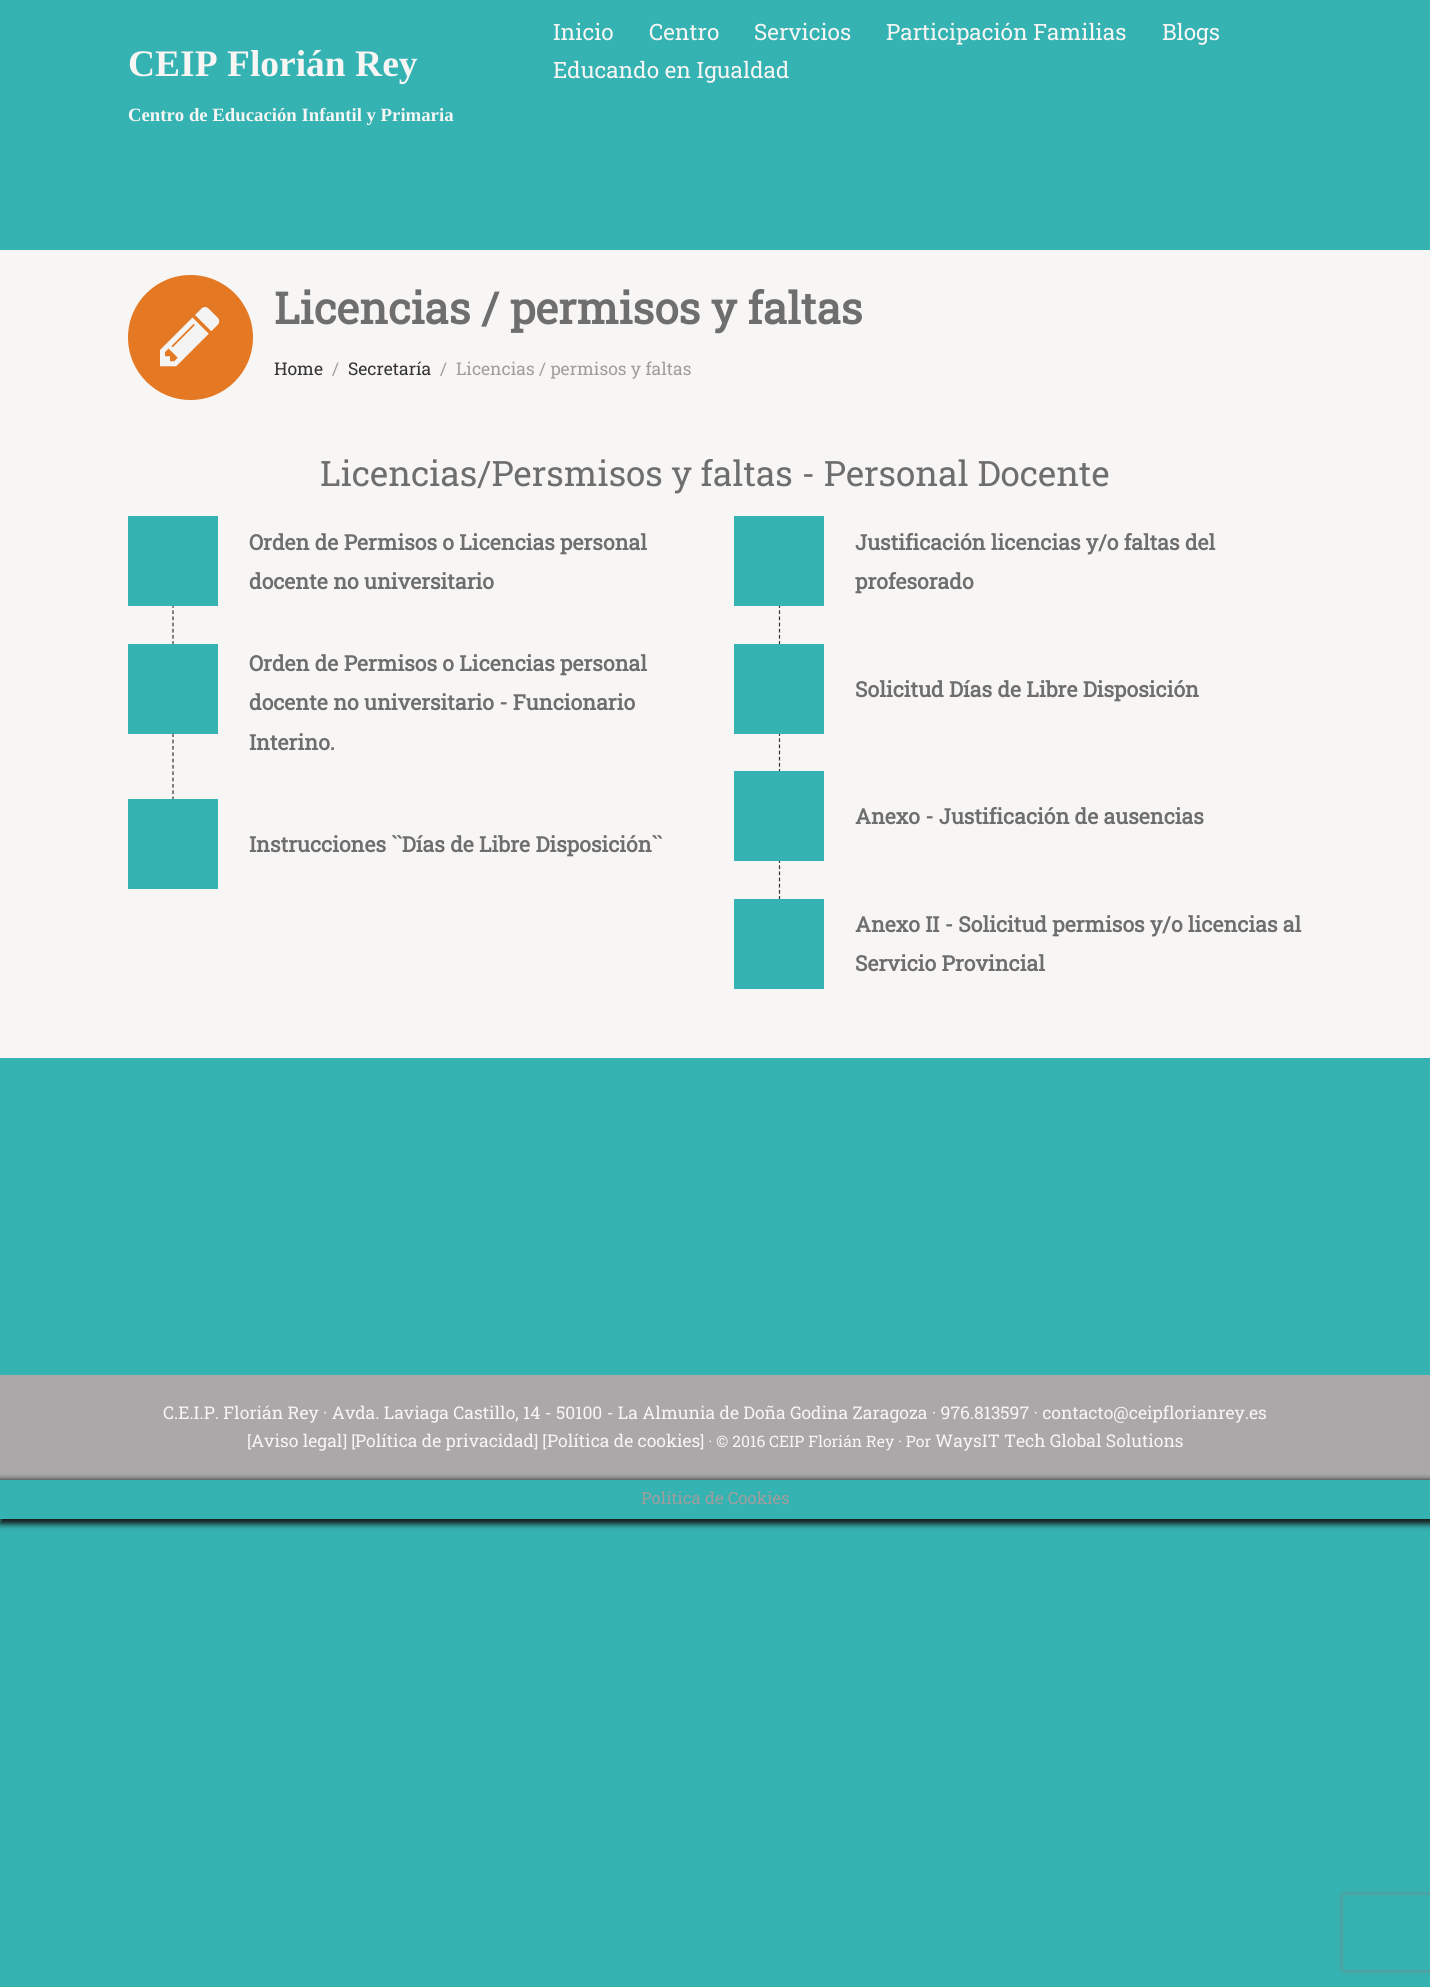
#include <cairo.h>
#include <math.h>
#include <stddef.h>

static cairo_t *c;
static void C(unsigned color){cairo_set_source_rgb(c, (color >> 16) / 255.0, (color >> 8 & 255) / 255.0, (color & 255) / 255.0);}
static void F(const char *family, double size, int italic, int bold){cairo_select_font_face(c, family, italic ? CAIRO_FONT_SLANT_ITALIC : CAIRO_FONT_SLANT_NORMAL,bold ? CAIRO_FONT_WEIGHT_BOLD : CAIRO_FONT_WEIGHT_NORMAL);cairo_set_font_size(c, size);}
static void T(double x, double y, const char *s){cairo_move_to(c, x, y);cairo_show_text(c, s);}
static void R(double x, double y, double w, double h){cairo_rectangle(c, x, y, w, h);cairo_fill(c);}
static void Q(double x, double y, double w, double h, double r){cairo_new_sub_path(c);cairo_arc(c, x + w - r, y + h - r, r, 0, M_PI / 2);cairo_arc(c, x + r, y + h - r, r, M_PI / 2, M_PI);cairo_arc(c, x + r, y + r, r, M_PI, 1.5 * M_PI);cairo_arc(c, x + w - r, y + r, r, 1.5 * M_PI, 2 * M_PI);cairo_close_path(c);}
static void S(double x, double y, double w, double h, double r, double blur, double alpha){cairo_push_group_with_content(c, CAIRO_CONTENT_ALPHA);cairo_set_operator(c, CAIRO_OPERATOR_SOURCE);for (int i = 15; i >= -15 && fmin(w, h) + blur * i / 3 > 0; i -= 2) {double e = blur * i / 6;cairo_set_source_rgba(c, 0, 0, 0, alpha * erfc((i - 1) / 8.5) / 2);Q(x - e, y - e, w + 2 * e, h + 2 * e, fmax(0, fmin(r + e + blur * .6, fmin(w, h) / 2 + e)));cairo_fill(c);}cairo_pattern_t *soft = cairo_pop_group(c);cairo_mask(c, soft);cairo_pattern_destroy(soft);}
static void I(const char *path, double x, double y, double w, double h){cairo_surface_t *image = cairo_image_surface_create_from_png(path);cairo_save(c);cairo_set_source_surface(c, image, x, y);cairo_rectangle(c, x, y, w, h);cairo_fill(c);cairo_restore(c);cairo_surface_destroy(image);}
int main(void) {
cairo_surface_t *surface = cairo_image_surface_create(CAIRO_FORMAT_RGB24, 1430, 1987);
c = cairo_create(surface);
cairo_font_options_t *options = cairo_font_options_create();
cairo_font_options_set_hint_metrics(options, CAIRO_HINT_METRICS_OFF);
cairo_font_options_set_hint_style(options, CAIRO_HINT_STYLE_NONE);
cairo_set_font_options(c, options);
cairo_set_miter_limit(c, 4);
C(0x35b2b2);
cairo_paint(c);
F("Liberation Serif",37.5,0,1);
C(0xf7f6f4);
T(128,76,"CEIP Florián Rey");
F("Liberation Serif",18.75,0,1);
T(128,121,"Centro de Educación Infantil y Primaria");
F("Roboto Slab",22.5,0,0);
T(553,40,"Inicio");
T(649,40,"Centro");
T(754,40,"Servicios");
T(886,40,"Participación Familias");
T(1162,40,"Blogs");
T(553,78,"Educando en Igualdad");
R(0,250,1430,808);
C(0xe47823);
cairo_new_path(c);
cairo_arc(c,190.5,337.5,62.5,0,2 * M_PI);
cairo_fill(c);
I("1.png",160,307,60,60);
F("Roboto Slab",43.75,0,1);
C(0x6e6e6e);
T(274,324,"Licencias / permisos y faltas");
F("Roboto Slab",17.5,0,0);
C(0x353434);
T(274,375,"Home");
C(0xa19d9d);
T(332,375,"/");
C(0x353434);
T(348,375,"Secretaría");
C(0xa19d9d);
T(440,375,"/");
T(456,375,"Licencias / permisos y faltas");
F("Roboto Slab",35,0,0);
C(0x6e6e6e);
T(320,486,"Licencias/Persmisos y faltas - Personal Docente");
cairo_new_path(c);
cairo_move_to(c,173,561);
cairo_line_to(c,173,651);
C(0x333333);
cairo_set_line_width(c,1.2);
cairo_set_dash(c,(double[]){3.75,2.41},2,0);
cairo_stroke(c);
C(0x35b2b2);
R(128,516,90,90);
F("Roboto Slab",21.25,0,1);
C(0x6e6e6e);
T(249,550,"Orden de Permisos o Licencias personal");
T(249,589,"docente no universitario");
cairo_new_path(c);
cairo_move_to(c,173,689);
cairo_line_to(c,173,806);
C(0x333333);
cairo_set_dash(c,(double[]){3.75,2.58},2,0);
cairo_stroke(c);
C(0x35b2b2);
R(128,644,90,90);
C(0x6e6e6e);
T(249,671,"Orden de Permisos o Licencias personal");
T(249,710,"docente no universitario - Funcionario");
T(249,750,"Interino.");
C(0x35b2b2);
R(128,799,90,90);
C(0x6e6e6e);
T(249,852,"Instrucciones ``Días de Libre Disposición``");
cairo_new_path(c);
cairo_move_to(c,779.5,561);
cairo_line_to(c,779.5,651);
C(0x333333);
cairo_set_dash(c,(double[]){3.75,2.41},2,0);
cairo_stroke(c);
C(0x35b2b2);
R(734,516,90,90);
C(0x6e6e6e);
T(855,550,"Justificación licencias y/o faltas del");
T(855,589,"profesorado");
cairo_new_path(c);
cairo_move_to(c,779.5,689);
cairo_line_to(c,779.5,779);
C(0x333333);
cairo_stroke(c);
C(0x35b2b2);
R(734,644,90,90);
C(0x6e6e6e);
T(855,697,"Solicitud Días de Libre Disposición");
cairo_new_path(c);
cairo_move_to(c,779.5,816);
cairo_line_to(c,779.5,906);
C(0x333333);
cairo_stroke(c);
C(0x35b2b2);
R(734,771,90,90);
C(0x6e6e6e);
T(855,824,"Anexo - Justificación de ausencias");
C(0x35b2b2);
R(734,899,90,90);
C(0x6e6e6e);
T(855,932,"Anexo II - Solicitud permisos y/o licencias al");
T(855,971,"Servicio Provincial");
C(0xaaa8a8);
R(0,1375,1430,105);
F("Roboto Slab",17.5,0,0);
C(0xf7f6f4);
T(163,1419,"C.E.I.P. Florián Rey · Avda. Laviaga Castillo, 14 - 50100 - La Almunia de Doña Godina Zaragoza · 976.813597 · contacto@ceipflorianrey.es");
F("Roboto Slab",15.75,0,0);
T(247,1447,"[");
F("Roboto Slab",17.5,0,0);
T(251,1447,"Aviso legal");
F("Roboto Slab",15.75,0,0);
T(343,1447,"] [");
F("Roboto Slab",17.5,0,0);
T(355,1447,"Política de privacidad");
F("Roboto Slab",15.75,0,0);
T(534,1447,"] [");
F("Roboto Slab",17.5,0,0);
T(547,1447,"Política de cookies");
F("Roboto Slab",15.75,0,0);
T(700,1447,"] · © 2016 CEIP Florián Rey · Por");
F("Roboto Slab",17.5,0,0);
T(935,1447,"WaysIT Tech Global Solutions");
cairo_save(c);
cairo_set_fill_rule(c,CAIRO_FILL_RULE_EVEN_ODD);
cairo_new_path(c);
cairo_move_to(c,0,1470);
cairo_line_to(c,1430,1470);
cairo_line_to(c,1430,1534);
cairo_line_to(c,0,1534);
cairo_close_path(c);
cairo_move_to(c,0,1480);
cairo_line_to(c,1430,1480);
cairo_line_to(c,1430,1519);
cairo_line_to(c,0,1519);
cairo_close_path(c);
cairo_clip(c);
C(0x161616);
S(0,1480,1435,44,0,3,1);
cairo_restore(c);
F("Roboto Slab",16.75,0,0);
C(0xa19d9d);
T(641,1504,"Política de Cookies");
cairo_save(c);
cairo_set_fill_rule(c,CAIRO_FILL_RULE_EVEN_ODD);
cairo_new_path(c);
cairo_move_to(c,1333,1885);
cairo_line_to(c,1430,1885);
cairo_line_to(c,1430,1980);
cairo_line_to(c,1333,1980);
cairo_close_path(c);
cairo_move_to(c,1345.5,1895);
cairo_line_to(c,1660.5,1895);
cairo_curve_to(c,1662,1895,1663,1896,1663,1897.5);
cairo_line_to(c,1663,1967.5);
cairo_curve_to(c,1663,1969,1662,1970,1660.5,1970);
cairo_line_to(c,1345.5,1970);
cairo_curve_to(c,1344,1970,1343,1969,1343,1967.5);
cairo_line_to(c,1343,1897.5);
cairo_curve_to(c,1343,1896,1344,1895,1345.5,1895);
cairo_close_path(c);
cairo_clip(c);
C(0x808080);
S(1343,1895,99,75,2.5,3,1);
cairo_restore(c);
cairo_surface_write_to_png(surface, "o.png");
cairo_font_options_destroy(options);
cairo_destroy(c);
cairo_surface_destroy(surface);
return 0;
}
